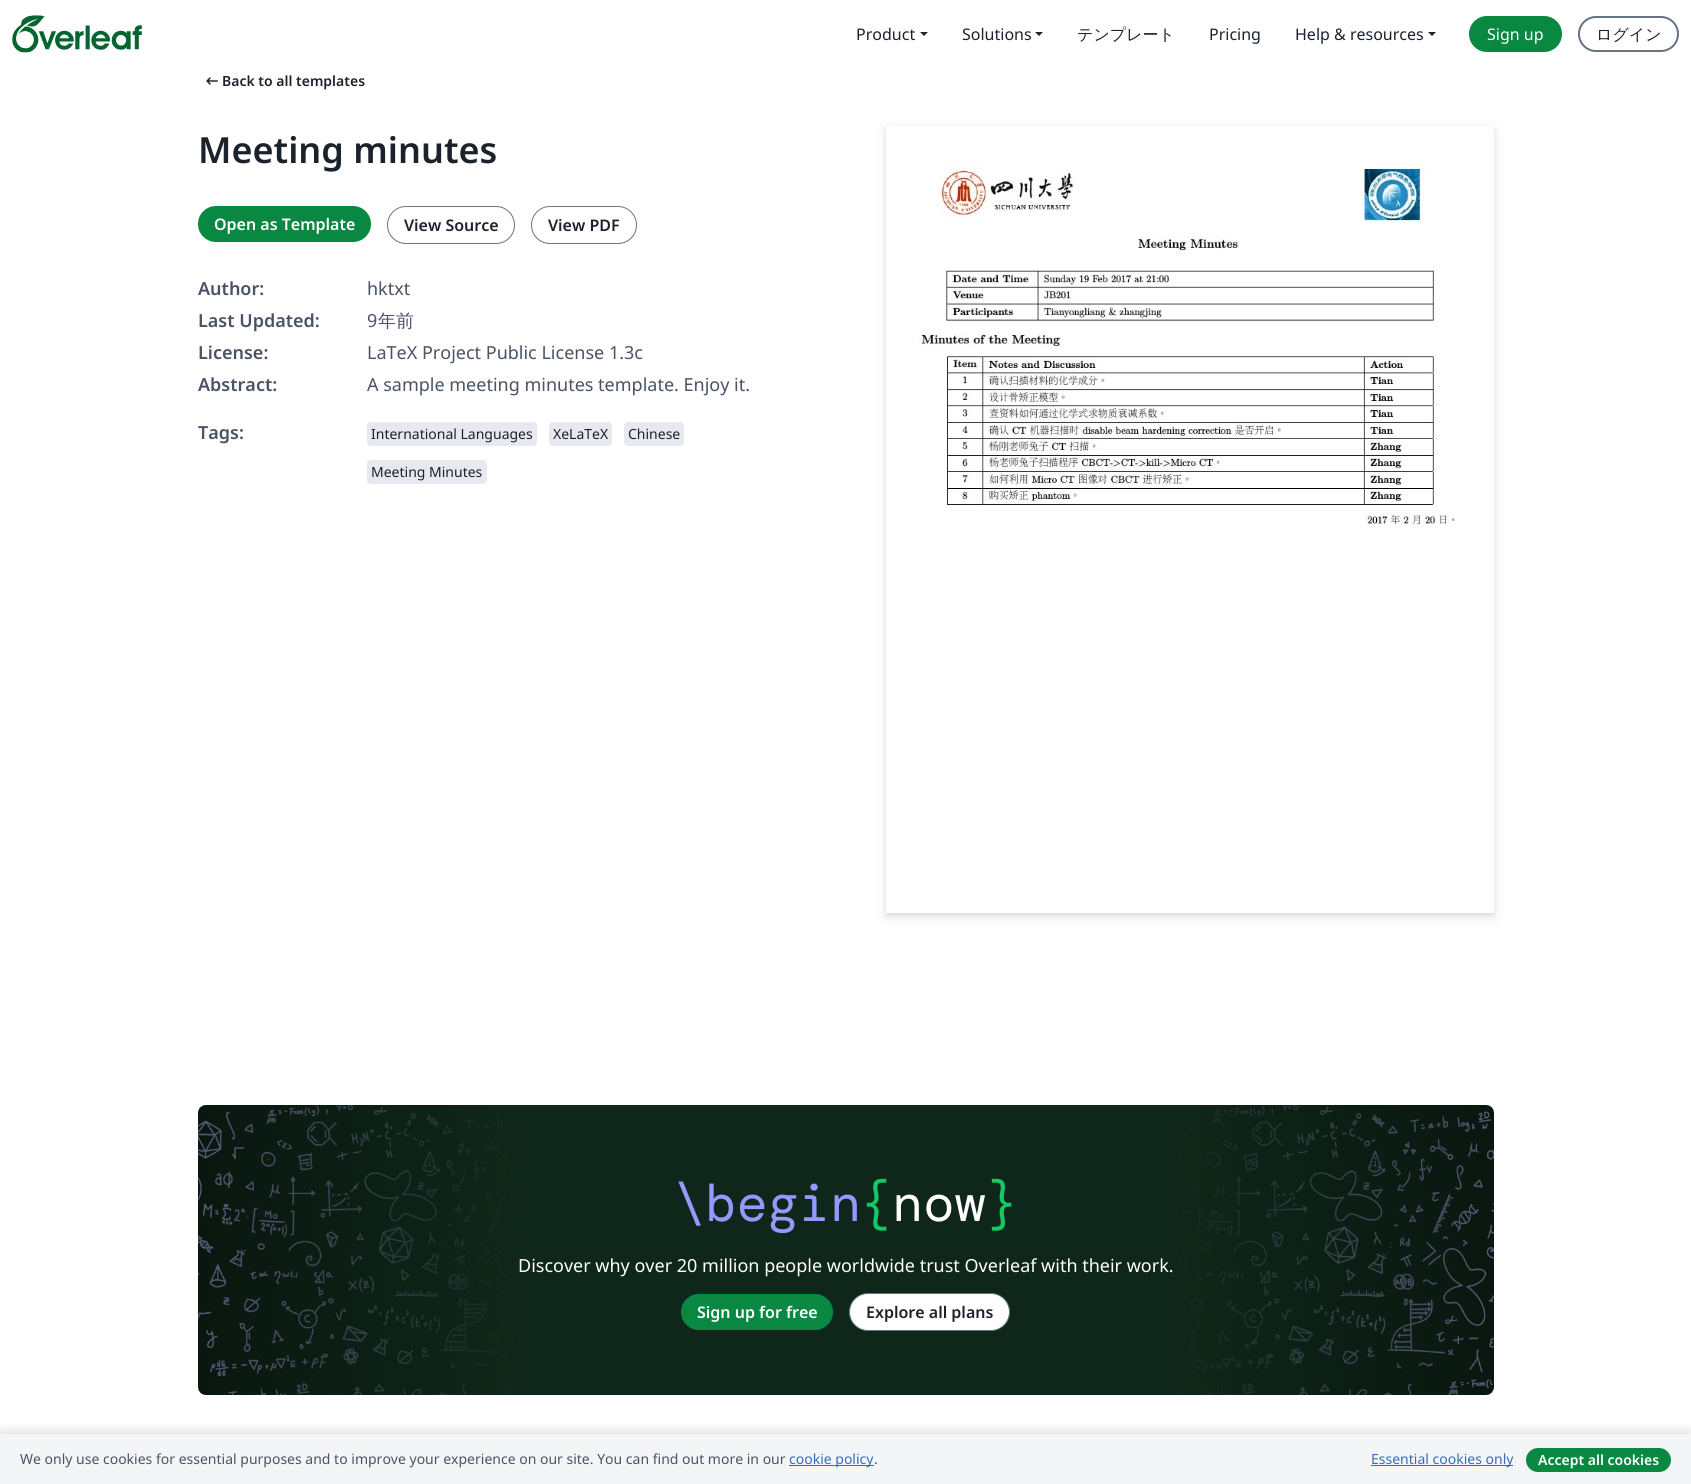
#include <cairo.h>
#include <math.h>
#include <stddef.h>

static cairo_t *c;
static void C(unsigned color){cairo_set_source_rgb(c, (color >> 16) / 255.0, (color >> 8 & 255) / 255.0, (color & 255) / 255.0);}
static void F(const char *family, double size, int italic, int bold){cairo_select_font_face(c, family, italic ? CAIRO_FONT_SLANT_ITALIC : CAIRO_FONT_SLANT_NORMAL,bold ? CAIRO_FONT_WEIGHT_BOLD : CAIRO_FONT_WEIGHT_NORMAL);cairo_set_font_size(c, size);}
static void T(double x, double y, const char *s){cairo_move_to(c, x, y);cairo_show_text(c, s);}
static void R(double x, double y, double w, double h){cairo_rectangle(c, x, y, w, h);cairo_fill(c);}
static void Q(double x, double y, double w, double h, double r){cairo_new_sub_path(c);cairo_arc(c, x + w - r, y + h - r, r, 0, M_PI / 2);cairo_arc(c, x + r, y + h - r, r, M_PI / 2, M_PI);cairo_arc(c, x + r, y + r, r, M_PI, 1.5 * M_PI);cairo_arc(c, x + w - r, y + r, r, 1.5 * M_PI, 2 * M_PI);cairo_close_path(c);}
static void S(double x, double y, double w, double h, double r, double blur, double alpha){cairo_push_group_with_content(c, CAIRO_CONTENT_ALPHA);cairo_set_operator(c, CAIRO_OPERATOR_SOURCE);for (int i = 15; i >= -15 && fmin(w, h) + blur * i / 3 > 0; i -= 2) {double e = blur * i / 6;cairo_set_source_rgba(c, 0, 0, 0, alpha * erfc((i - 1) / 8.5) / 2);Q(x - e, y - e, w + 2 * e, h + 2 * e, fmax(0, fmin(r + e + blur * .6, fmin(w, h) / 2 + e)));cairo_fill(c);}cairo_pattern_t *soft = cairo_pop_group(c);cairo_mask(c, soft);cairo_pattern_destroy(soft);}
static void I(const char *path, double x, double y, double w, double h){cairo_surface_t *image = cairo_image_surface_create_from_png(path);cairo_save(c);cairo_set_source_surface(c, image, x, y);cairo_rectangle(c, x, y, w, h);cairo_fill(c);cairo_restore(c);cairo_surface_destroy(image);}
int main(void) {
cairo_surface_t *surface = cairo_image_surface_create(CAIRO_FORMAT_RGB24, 1691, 1484);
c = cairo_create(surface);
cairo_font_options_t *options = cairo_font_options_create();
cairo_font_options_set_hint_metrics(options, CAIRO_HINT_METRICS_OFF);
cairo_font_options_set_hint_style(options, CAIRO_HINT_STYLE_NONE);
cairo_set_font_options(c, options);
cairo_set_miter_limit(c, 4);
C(0xffffff);
cairo_paint(c);
I("1.png",12,15,130,38);
F("Noto Sans",16,0,0);
C(0x1b222c);
T(856,40,"Product");
cairo_new_path(c);
cairo_move_to(c,920,32);
cairo_line_to(c,928,32);
cairo_line_to(c,924,36);
cairo_close_path(c);
cairo_fill(c);
T(962,40,"Solutions");
cairo_new_path(c);
cairo_move_to(c,1035,32);
cairo_line_to(c,1043,32);
cairo_line_to(c,1039,36);
cairo_close_path(c);
cairo_fill(c);
F("WenQuanYi Zen Hei Medium",16,0,0);
T(1077,40,"テンプレート");
F("Noto Sans",16,0,0);
T(1209,40,"Pricing");
T(1295,40,"Help & resources");
cairo_new_path(c);
cairo_move_to(c,1428,32);
cairo_line_to(c,1436,32);
cairo_line_to(c,1432,36);
cairo_close_path(c);
cairo_fill(c);
C(0x098842);
Q(1470,17,91,34,17);
cairo_fill_preserve(c);
cairo_stroke(c);
C(0xffffff);
T(1487,40,"Sign up");
Q(1579,17,99,34,17);
C(0x677283);
cairo_stroke(c);
F("WenQuanYi Zen Hei Medium",16,0,0);
C(0x1b222c);
T(1596,40,"ログイン");
I("2.png",206,77,12,8);
F("Noto Sans SemiBold",14,0,0);
T(222,86,"Back to all templates");
F("Noto Sans SemiBold",36,0,0);
T(198,163,"Meeting minutes");
C(0x098842);
Q(198,206,173,36,18);
cairo_fill(c);
F("Noto Sans SemiBold",16,0,0);
C(0xffffff);
T(214,230,"Open as Template");
Q(387.5,206.5,127,37,18.5);
C(0x677283);
cairo_set_line_width(c,1);
cairo_stroke(c);
C(0x1b222c);
T(404,231,"View Source");
Q(531.5,206.5,105,37,18.5);
C(0x677283);
cairo_stroke(c);
C(0x1b222c);
T(548,231,"View PDF");
F("Noto Sans SemiBold",18,0,0);
C(0x495365);
T(198,295,"Author:");
F("Noto Sans",18,0,0);
T(367,295,"hktxt");
F("Noto Sans SemiBold",18,0,0);
T(198,327,"Last Updated:");
F("Noto Sans",18,0,0);
T(367,327,"9");
F("WenQuanYi Zen Hei Medium",18,0,0);
T(378,327,"年前");
F("Noto Sans SemiBold",18,0,0);
T(198,359,"License:");
F("Noto Sans",18,0,0);
T(367,359,"LaTeX Project Public License 1.3c");
F("Noto Sans SemiBold",18,0,0);
T(198,391,"Abstract:");
F("Noto Sans",18,0,0);
T(367,391,"A sample meeting minutes template. Enjoy it.");
F("Noto Sans SemiBold",18,0,0);
T(198,439,"Tags:");
C(0xe7e9ee);
Q(367,422,170,24,4);
cairo_fill(c);
F("Noto Sans",14,0,0);
C(0x1b222c);
T(371,439,"International Languages");
C(0xe7e9ee);
Q(549,422,63,24,4);
cairo_fill(c);
C(0x1b222c);
T(553,439,"XeLaTeX");
C(0xe7e9ee);
Q(624,422,60,24,4);
cairo_fill(c);
C(0x1b222c);
T(628,439,"Chinese");
C(0xe7e9ee);
Q(367,460,120,24,4);
cairo_fill(c);
C(0x1b222c);
T(371,477,"Meeting Minutes");
cairo_save(c);
cairo_set_fill_rule(c,CAIRO_FILL_RULE_EVEN_ODD);
cairo_new_path(c);
cairo_move_to(c,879,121);
cairo_line_to(c,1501,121);
cairo_line_to(c,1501,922);
cairo_line_to(c,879,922);
cairo_close_path(c);
cairo_move_to(c,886,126);
cairo_line_to(c,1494,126);
cairo_line_to(c,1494,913);
cairo_line_to(c,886,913);
cairo_close_path(c);
cairo_clip(c);
C(0x1e2530);
S(886,128,608,787,0,2,.08);
cairo_restore(c);
cairo_save(c);
cairo_set_fill_rule(c,CAIRO_FILL_RULE_EVEN_ODD);
cairo_new_path(c);
cairo_move_to(c,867,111);
cairo_line_to(c,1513,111);
cairo_line_to(c,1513,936);
cairo_line_to(c,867,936);
cairo_close_path(c);
cairo_move_to(c,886,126);
cairo_line_to(c,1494,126);
cairo_line_to(c,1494,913);
cairo_line_to(c,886,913);
cairo_close_path(c);
cairo_clip(c);
C(0x1e2530);
S(886,130,608,787,0,6,.12);
cairo_restore(c);
I("3.png",917,162,539,363);
C(0xf4f5f6);
Q(198,1105,1296,290,8);
cairo_fill(c);
I("4.png",198,1105,1296,290);
F("DM Mono",52,0,0);
C(0x939aff);
T(674,1221,"\\begin");
C(0x13c965);
T(861,1221,"{");
C(0xffffff);
T(892,1221,"now");
C(0x13c965);
T(986,1221,"}");
F("Noto Sans",18,0,0);
C(0xffffff);
T(518,1272,"Discover why over 20 million people worldwide trust Overleaf with their work.");
C(0x098842);
Q(681,1294,152,36,18);
cairo_fill(c);
F("Noto Sans SemiBold",16,0,0);
C(0xffffff);
T(697,1318,"Sign up for free");
Q(849.5,1293.5,160,37,18.5);
cairo_fill_preserve(c);
C(0x677283);
cairo_stroke(c);
C(0x1b222c);
T(866,1318,"Explore all plans");
C(0x000000);
S(0,1429,1691,50,0,4,.1);
C(0xf4f5f6);
R(0,1434,1691,50);
F("Noto Sans",14,0,0);
C(0x495365);
T(20,1464,"We only use cookies for essential purposes and to improve your experience on our site. You can find out more in our");
C(0x366cbf);
R(789,1465,85,1);
T(789,1464,"cookie policy");
C(0x495365);
T(874,1464,".");
C(0x366cbf);
R(1371,1465,142,1);
T(1371,1464,"Essential cookies only");
C(0x098842);
Q(1526,1448,145,24,12);
cairo_fill(c);
F("Noto Sans SemiBold",14,0,0);
C(0xffffff);
T(1538,1465,"Accept all cookies");
cairo_surface_write_to_png(surface, "o.png");
cairo_font_options_destroy(options);
cairo_destroy(c);
cairo_surface_destroy(surface);
return 0;
}
